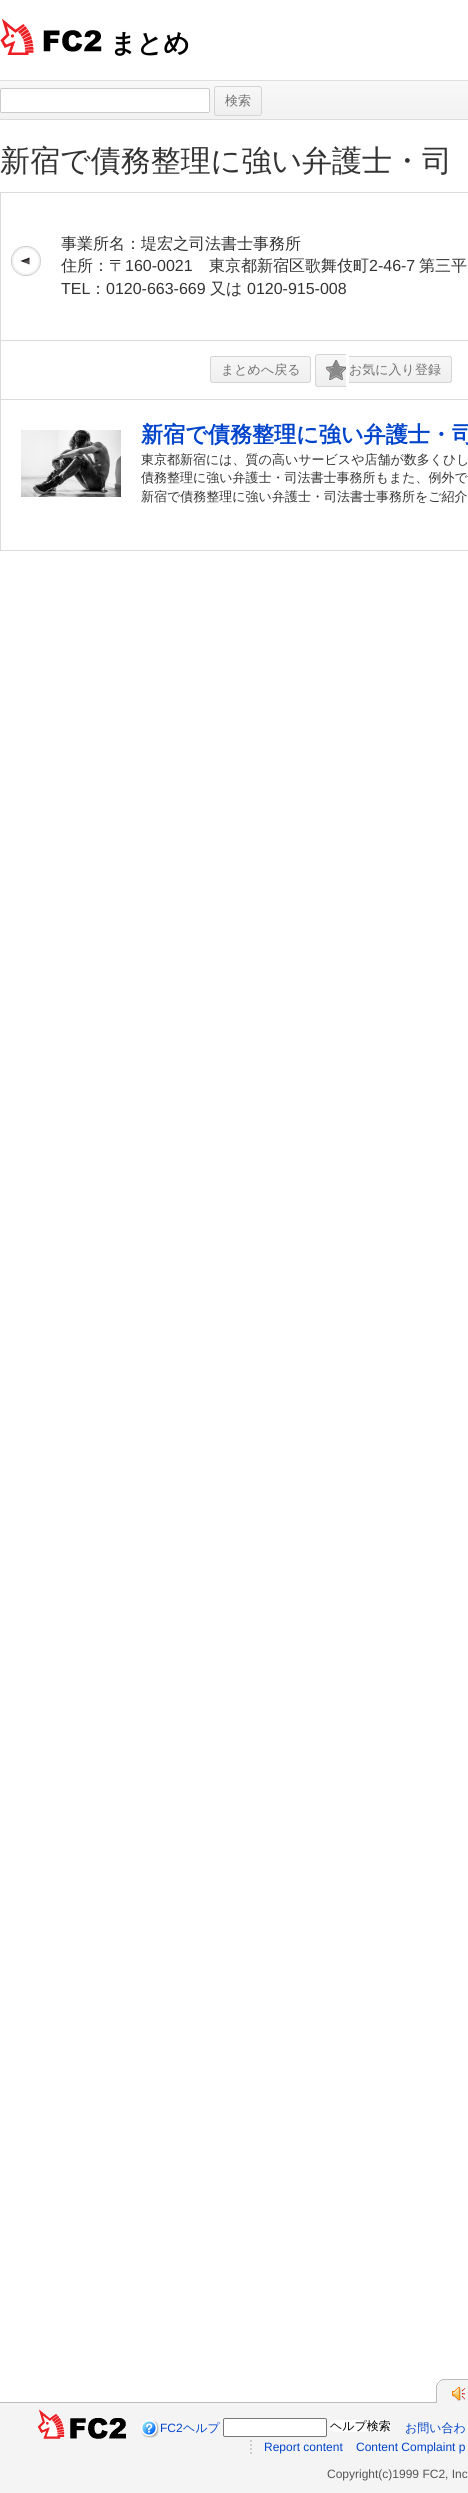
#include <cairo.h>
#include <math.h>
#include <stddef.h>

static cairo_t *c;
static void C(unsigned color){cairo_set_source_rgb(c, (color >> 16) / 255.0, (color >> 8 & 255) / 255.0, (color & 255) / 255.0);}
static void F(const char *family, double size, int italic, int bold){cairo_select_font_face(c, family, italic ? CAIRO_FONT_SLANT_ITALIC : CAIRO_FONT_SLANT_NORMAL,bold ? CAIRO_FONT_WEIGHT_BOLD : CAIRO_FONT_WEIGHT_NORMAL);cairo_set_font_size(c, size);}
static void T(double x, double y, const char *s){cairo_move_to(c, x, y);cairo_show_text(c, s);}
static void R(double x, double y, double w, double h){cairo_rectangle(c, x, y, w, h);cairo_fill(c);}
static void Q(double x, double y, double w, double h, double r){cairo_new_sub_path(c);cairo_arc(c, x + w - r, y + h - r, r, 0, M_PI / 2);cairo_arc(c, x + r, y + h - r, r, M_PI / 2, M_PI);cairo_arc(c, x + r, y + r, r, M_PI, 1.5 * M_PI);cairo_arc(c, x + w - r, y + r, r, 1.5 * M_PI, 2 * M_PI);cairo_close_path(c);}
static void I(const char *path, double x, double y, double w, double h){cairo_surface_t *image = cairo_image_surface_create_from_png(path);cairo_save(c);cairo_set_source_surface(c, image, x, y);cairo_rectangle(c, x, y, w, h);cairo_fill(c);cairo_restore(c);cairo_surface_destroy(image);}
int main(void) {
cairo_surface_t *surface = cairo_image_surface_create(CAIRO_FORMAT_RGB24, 468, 2493);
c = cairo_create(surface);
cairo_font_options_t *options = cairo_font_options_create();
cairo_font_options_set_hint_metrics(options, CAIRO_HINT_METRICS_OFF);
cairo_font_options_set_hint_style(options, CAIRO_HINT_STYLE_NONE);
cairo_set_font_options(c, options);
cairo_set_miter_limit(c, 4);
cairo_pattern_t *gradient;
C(0xffffff);
cairo_paint(c);
I("1.png",0,19,102,36);
F("WenQuanYi Zen Hei",26,0,1);
C(0x000000);
T(110,52,"まとめ");
gradient = cairo_pattern_create_linear(234,81,234,119);
cairo_pattern_add_color_stop_rgba(gradient,0,0.973,0.973,0.973,1);
cairo_pattern_add_color_stop_rgba(gradient,1,0.949,0.949,0.949,1);
cairo_set_source(c,gradient);
cairo_pattern_destroy(gradient);
R(0,81,468,38);
C(0xdfdfdf);
R(0,80,468,1);
C(0xdbdbdb);
R(0,119,468,1);
C(0xffffff);
Q(.5,88.5,209,24,1.5);
cairo_fill_preserve(c);
C(0xcccccc);
cairo_set_line_width(c,1);
cairo_stroke(c);
cairo_save(c);
Q(214,86,48,30,3);
cairo_clip(c);
gradient = cairo_pattern_create_linear(238,87,238,115);
cairo_pattern_add_color_stop_rgba(gradient,0,0.969,0.969,0.969,1);
cairo_pattern_add_color_stop_rgba(gradient,1,0.937,0.937,0.937,1);
cairo_set_source(c,gradient);
cairo_pattern_destroy(gradient);
R(214,87,48,28);
cairo_restore(c);
Q(214.5,86.5,47,29,2.5);
C(0xd5d5d6);
cairo_stroke(c);
F("WenQuanYi Zen Hei Medium",13,0,0);
C(0x727272);
T(225,105,"検索");
F("WenQuanYi Zen Hei Medium",30,0,0);
C(0x333333);
T(0,171,"新宿で債務整理に強い弁護士・司");
cairo_rectangle(c,.5,192.5,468,148);
C(0xdcdcdc);
cairo_stroke(c);
I("2.png",11,246,30,30);
F("WenQuanYi Zen Hei Medium",16,0,0);
C(0x333333);
T(61,249,"事業所名：堤宏之司法書士事務所");
T(61,271,"住所：〒");
F("Liberation Sans",16,0,0);
T(125,271,"160-0021");
F("WenQuanYi Zen Hei Medium",16,0,0);
T(209,271,"東京都新宿区歌舞伎町");
F("Liberation Sans",16,0,0);
T(369,271,"2-46-7");
F("WenQuanYi Zen Hei Medium",16,0,0);
T(419,271,"第三平");
F("Liberation Sans",16,0,0);
T(61,294,"TEL");
F("WenQuanYi Zen Hei Medium",16,0,0);
T(90,294,"：");
F("Liberation Sans",16,0,0);
T(106,294,"0120-663-669");
F("WenQuanYi Zen Hei Medium",16,0,0);
T(210,294,"又は");
F("Liberation Sans",16,0,0);
T(247,294,"0120-915-008");
C(0xdcdcdc);
R(0,341,1,58);
cairo_save(c);
Q(210,356,101,27,3);
cairo_clip(c);
gradient = cairo_pattern_create_linear(261,357,261,382);
cairo_pattern_add_color_stop_rgba(gradient,0,0.969,0.969,0.969,1);
cairo_pattern_add_color_stop_rgba(gradient,1,0.937,0.937,0.937,1);
cairo_set_source(c,gradient);
cairo_pattern_destroy(gradient);
R(210,357,101,25);
cairo_restore(c);
Q(210.5,356.5,100,26,2.5);
C(0xd5d5d6);
cairo_stroke(c);
F("WenQuanYi Zen Hei Medium",13,0,0);
C(0x727272);
T(221,374,"まとめへ戻る");
cairo_save(c);
cairo_new_path(c);
cairo_move_to(c,318,354);
cairo_line_to(c,346,354);
cairo_line_to(c,346,387);
cairo_line_to(c,318,387);
cairo_curve_to(c,316.5,387,315,385.5,315,384);
cairo_line_to(c,315,357);
cairo_curve_to(c,315,355.5,316.5,354,318,354);
cairo_close_path(c);
cairo_clip(c);
gradient = cairo_pattern_create_linear(331,355,331,386);
cairo_pattern_add_color_stop_rgba(gradient,0,0.969,0.969,0.969,1);
cairo_pattern_add_color_stop_rgba(gradient,1,0.937,0.937,0.937,1);
cairo_set_source(c,gradient);
cairo_pattern_destroy(gradient);
R(315,355,31,31);
cairo_restore(c);
C(0xd5d5d6);
cairo_set_fill_rule(c,CAIRO_FILL_RULE_EVEN_ODD);
cairo_new_path(c);
cairo_move_to(c,318,354);
cairo_line_to(c,346,354);
cairo_line_to(c,346,387);
cairo_line_to(c,318,387);
cairo_curve_to(c,316.5,387,315,385.5,315,384);
cairo_line_to(c,315,357);
cairo_curve_to(c,315,355.5,316.5,354,318,354);
cairo_close_path(c);
cairo_move_to(c,318,355);
cairo_line_to(c,346,355);
cairo_line_to(c,346,386);
cairo_line_to(c,318,386);
cairo_curve_to(c,317,386,316,385,316,384);
cairo_line_to(c,316,357);
cairo_curve_to(c,316,356,317,355,318,355);
cairo_close_path(c);
cairo_fill(c);
I("3.png",326,360,20,20);
cairo_save(c);
cairo_set_fill_rule(c,CAIRO_FILL_RULE_WINDING);
cairo_new_path(c);
cairo_move_to(c,349,356);
cairo_line_to(c,449,356);
cairo_curve_to(c,450.5,356,452,357.5,452,359);
cairo_line_to(c,452,380);
cairo_curve_to(c,452,381.5,450.5,383,449,383);
cairo_line_to(c,349,383);
cairo_close_path(c);
cairo_clip(c);
gradient = cairo_pattern_create_linear(400,357,400,382);
cairo_pattern_add_color_stop_rgba(gradient,0,0.969,0.969,0.969,1);
cairo_pattern_add_color_stop_rgba(gradient,1,0.937,0.937,0.937,1);
cairo_set_source(c,gradient);
cairo_pattern_destroy(gradient);
R(349,357,103,25);
cairo_restore(c);
cairo_new_path(c);
cairo_move_to(c,349,356);
cairo_line_to(c,449,356);
cairo_curve_to(c,451,356,452,357,452,359);
cairo_line_to(c,452,380);
cairo_curve_to(c,452,382,451,383,449,383);
cairo_line_to(c,349,383);
cairo_close_path(c);
cairo_move_to(c,349,357);
cairo_line_to(c,449,357);
cairo_curve_to(c,450,357,451,358,451,359);
cairo_line_to(c,451,380);
cairo_curve_to(c,451,381,450,382,449,382);
cairo_line_to(c,349,382);
cairo_close_path(c);
cairo_fill(c);
C(0x727272);
T(349,374,"お気に入り登録");
cairo_rectangle(c,.5,399.5,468,151);
C(0xdcdcdc);
cairo_stroke(c);
I("4.png",21,430,100,67);
F("WenQuanYi Zen Hei",22.1,0,1);
C(0x0044cc);
T(141,442,"新宿で債務整理に強い弁護士・司");
F("WenQuanYi Zen Hei Medium",13,0,0);
C(0x333333);
T(141,464,"東京都新宿には、質の高いサービスや店舗が数多くひし");
T(141,482,"債務整理に強い弁護士・司法書士事務所もまた、例外で");
T(141,501,"新宿で債務整理に強い弁護士・司法書士事務所をご紹介");
C(0xbcbcbc);
R(442,2379,26,1);
C(0xf4f4f4);
R(440,2380,28,1);
C(0xbcbcbc);
R(440,2380,2,1);
C(0xf4f4f4);
R(439,2381,29,1);
C(0xbcbcbc);
R(439,2381,1,1);
C(0xf4f4f4);
R(438,2382,30,1);
C(0xbcbcbc);
R(438,2382,1,1);
C(0xf4f4f4);
R(437,2383,31,20);
C(0xbcbcbc);
R(437,2383,1,2);
R(436,2385,1,18);
I("5.png",451,2387,15,14);
C(0xf4f4f4);
R(0,2403,468,90);
C(0xbcbcbc);
R(0,2402,436,1);
I("6.png",38,2409,88,30);
I("7.png",140,2419,19,19);
F("Liberation Sans",12,0,0);
C(0x0044cc);
T(160,2432,"FC2");
F("WenQuanYi Zen Hei Medium",12,0,0);
T(183,2432,"ヘルプ");
C(0xffffff);
Q(223.5,2418.5,103,18,1.5);
cairo_fill_preserve(c);
C(0x767676);
cairo_stroke(c);
C(0xffffff);
Q(330,2420,61,12,4);
cairo_fill(c);
cairo_save(c);
cairo_set_fill_rule(c,CAIRO_FILL_RULE_WINDING);
Q(330,2420,61,12,4);
cairo_clip(c);
C(0x000000);
T(330,2430,"ヘルプ検索");
cairo_restore(c);
C(0x0044cc);
T(405,2432,"お問い合わ");
F("Liberation Sans",12,0,0);
T(264,2451,"Report content");
cairo_new_path(c);
cairo_move_to(c,251,2440);
cairo_line_to(c,251,2442);
cairo_move_to(c,251,2444);
cairo_line_to(c,251,2446);
cairo_move_to(c,251,2448);
cairo_line_to(c,251,2450);
cairo_move_to(c,251,2452);
cairo_line_to(c,251,2454);
C(0xcccccc);
cairo_set_line_width(c,2);
cairo_stroke(c);
C(0x0044cc);
T(356,2451,"Content Complaint p");
C(0x555555);
T(327,2478,"Copyright(c)1999 FC2, Inc");
cairo_surface_write_to_png(surface, "o.png");
cairo_font_options_destroy(options);
cairo_destroy(c);
cairo_surface_destroy(surface);
return 0;
}
